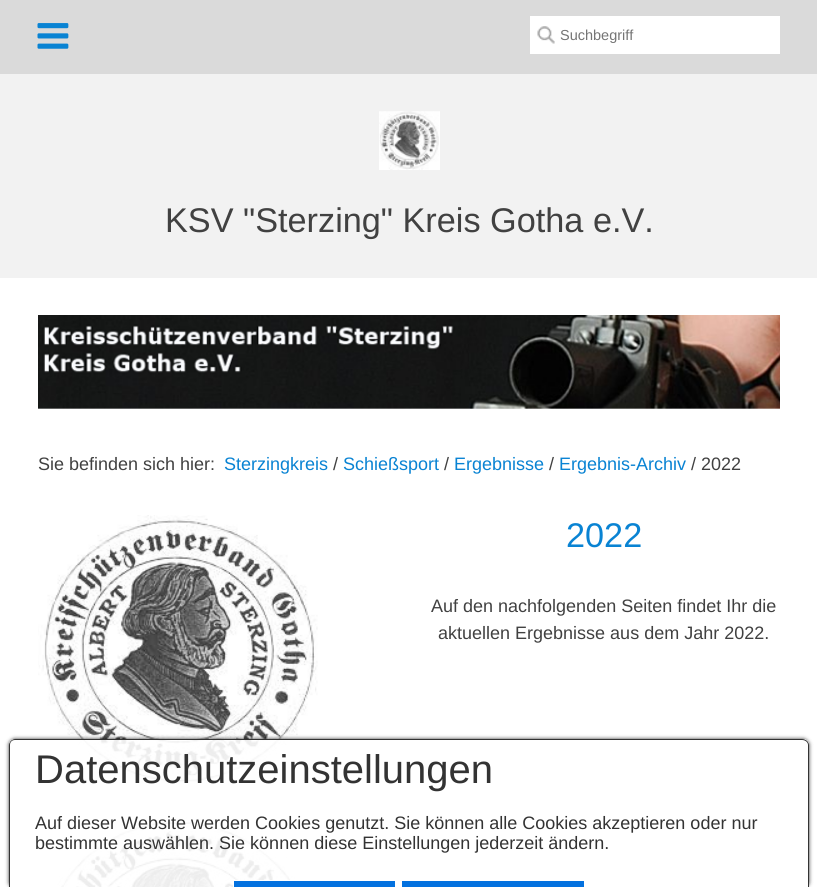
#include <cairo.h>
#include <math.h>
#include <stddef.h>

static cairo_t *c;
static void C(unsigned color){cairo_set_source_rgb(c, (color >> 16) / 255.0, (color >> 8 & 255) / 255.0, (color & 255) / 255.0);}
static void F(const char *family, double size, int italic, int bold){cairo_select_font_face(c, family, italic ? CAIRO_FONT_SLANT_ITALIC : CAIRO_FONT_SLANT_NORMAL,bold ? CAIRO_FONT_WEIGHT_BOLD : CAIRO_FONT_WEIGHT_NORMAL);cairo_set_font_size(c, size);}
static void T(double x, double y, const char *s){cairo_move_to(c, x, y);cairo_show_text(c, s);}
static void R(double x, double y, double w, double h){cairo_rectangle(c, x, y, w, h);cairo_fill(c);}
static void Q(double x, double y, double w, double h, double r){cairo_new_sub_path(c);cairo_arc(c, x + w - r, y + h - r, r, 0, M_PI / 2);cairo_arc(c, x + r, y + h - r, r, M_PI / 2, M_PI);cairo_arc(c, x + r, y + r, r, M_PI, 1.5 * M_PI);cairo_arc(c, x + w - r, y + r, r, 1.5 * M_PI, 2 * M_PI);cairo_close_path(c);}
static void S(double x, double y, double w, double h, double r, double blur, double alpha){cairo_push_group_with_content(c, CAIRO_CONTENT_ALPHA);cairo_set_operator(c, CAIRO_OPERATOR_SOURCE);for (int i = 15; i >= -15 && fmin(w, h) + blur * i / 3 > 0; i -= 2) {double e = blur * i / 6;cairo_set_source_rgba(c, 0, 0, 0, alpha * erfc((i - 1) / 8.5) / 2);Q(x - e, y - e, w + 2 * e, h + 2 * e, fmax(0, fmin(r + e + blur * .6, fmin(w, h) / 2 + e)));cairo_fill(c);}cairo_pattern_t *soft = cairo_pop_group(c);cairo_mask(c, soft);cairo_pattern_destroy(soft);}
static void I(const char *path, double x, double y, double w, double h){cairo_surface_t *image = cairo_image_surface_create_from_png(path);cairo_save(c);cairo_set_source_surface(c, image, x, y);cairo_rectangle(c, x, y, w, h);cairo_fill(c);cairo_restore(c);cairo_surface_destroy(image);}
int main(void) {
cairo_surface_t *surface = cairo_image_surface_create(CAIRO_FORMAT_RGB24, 817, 887);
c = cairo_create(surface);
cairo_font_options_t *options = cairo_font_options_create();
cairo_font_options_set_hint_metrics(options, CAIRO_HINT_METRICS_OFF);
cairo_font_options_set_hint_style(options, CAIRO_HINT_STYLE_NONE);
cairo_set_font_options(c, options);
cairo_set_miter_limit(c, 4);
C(0xf2f2f2);
cairo_paint(c);
C(0xdadada);
R(0,0,817,74);
I("1.png",37,23,32,26);
C(0xffffff);
R(530,16,250,38);
I("2.png",537,26,18,18);
F("Liberation Sans",14.5,0,0);
C(0x757575);
T(560,40,"Suchbegriff");
I("3.png",379,111,61,59);
F("Liberation Sans",34.25,0,0);
C(0x414141);
T(165,232,"KSV \"Sterzing\" Kreis Gotha e.V.");
C(0xffffff);
R(0,278,817,609);
I("4.png",38,315,742,94);
F("Liberation Sans",18,0,0);
C(0x414141);
T(38,470,"Sie befinden sich hier:");
C(0x0983d3);
T(224,470,"Sterzingkreis");
C(0x414141);
T(333,470,"/");
C(0x0983d3);
T(343,470,"Schießsport");
C(0x414141);
T(444,470,"/");
C(0x0983d3);
T(454,470,"Ergebnisse");
C(0x414141);
T(549,470,"/");
C(0x0983d3);
T(559,470,"Ergebnis-Archiv");
C(0x414141);
T(691,470,"/ 2022");
I("5.png",38,515,280,270);
F("Liberation Sans",34.25,0,0);
C(0x0983d3);
T(566,547,"2022");
F("Liberation Sans",18,0,0);
C(0x414141);
T(431,612,"Auf den nachfolgenden Seiten findet Ihr die");
T(438,639,"aktuellen Ergebnisse aus dem Jahr 2022.");
I("6.png",57,816,245,71);
cairo_save(c);
cairo_set_fill_rule(c,CAIRO_FILL_RULE_EVEN_ODD);
cairo_new_path(c);
cairo_move_to(c,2,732);
cairo_line_to(c,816,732);
cairo_line_to(c,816,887);
cairo_line_to(c,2,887);
cairo_close_path(c);
cairo_move_to(c,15,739);
cairo_line_to(c,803,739);
cairo_curve_to(c,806.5,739,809,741.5,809,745);
cairo_line_to(c,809,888);
cairo_line_to(c,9,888);
cairo_line_to(c,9,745);
cairo_curve_to(c,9,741.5,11.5,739,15,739);
cairo_close_path(c);
cairo_clip(c);
C(0x000000);
S(9,739,800,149,6,2,.8);
cairo_restore(c);
cairo_set_source_rgba(c,1,1,1,0.9);
cairo_new_path(c);
cairo_move_to(c,15,739);
cairo_line_to(c,803,739);
cairo_curve_to(c,806.5,739,809,741.5,809,745);
cairo_line_to(c,809,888);
cairo_line_to(c,9,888);
cairo_line_to(c,9,745);
cairo_curve_to(c,9,741.5,11.5,739,15,739);
cairo_close_path(c);
cairo_fill(c);
C(0x333333);
cairo_set_fill_rule(c,CAIRO_FILL_RULE_EVEN_ODD);
cairo_new_path(c);
cairo_move_to(c,15,739);
cairo_line_to(c,802,739);
cairo_curve_to(c,806,739,809,742,809,745);
cairo_line_to(c,809,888);
cairo_line_to(c,9,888);
cairo_line_to(c,9,745);
cairo_curve_to(c,9,742,12,739,15,739);
cairo_close_path(c);
cairo_move_to(c,15,740);
cairo_line_to(c,802,740);
cairo_curve_to(c,805,740,808,742,808,745);
cairo_line_to(c,808,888);
cairo_line_to(c,10,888);
cairo_line_to(c,10,745);
cairo_curve_to(c,10,742,12,740,15,740);
cairo_close_path(c);
cairo_fill(c);
F("Liberation Sans",40,0,0);
T(35,783,"Datenschutzeinstellungen");
F("Liberation Sans",18,0,0);
T(35,829,"Auf dieser Website werden Cookies genutzt. Sie können alle Cookies akzeptieren oder nur");
T(35,849,"bestimmte auswählen. Sie können diese Einstellungen jederzeit ändern.");
C(0x0371df);
R(233,881,163,6);
C(0xffffff);
cairo_set_fill_rule(c,CAIRO_FILL_RULE_WINDING);
cairo_new_path(c);
cairo_move_to(c,233,880);
cairo_line_to(c,233,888);
cairo_line_to(c,234,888);
cairo_line_to(c,234,881);
cairo_line_to(c,395,881);
cairo_line_to(c,395,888);
cairo_line_to(c,396,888);
cairo_line_to(c,396,880);
cairo_close_path(c);
cairo_fill(c);
C(0x0371df);
R(401,881,184,6);
C(0xffffff);
cairo_new_path(c);
cairo_move_to(c,401,880);
cairo_line_to(c,401,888);
cairo_line_to(c,402,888);
cairo_line_to(c,402,881);
cairo_line_to(c,584,881);
cairo_line_to(c,584,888);
cairo_line_to(c,585,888);
cairo_line_to(c,585,880);
cairo_close_path(c);
cairo_fill(c);
cairo_surface_write_to_png(surface, "o.png");
cairo_font_options_destroy(options);
cairo_destroy(c);
cairo_surface_destroy(surface);
return 0;
}
